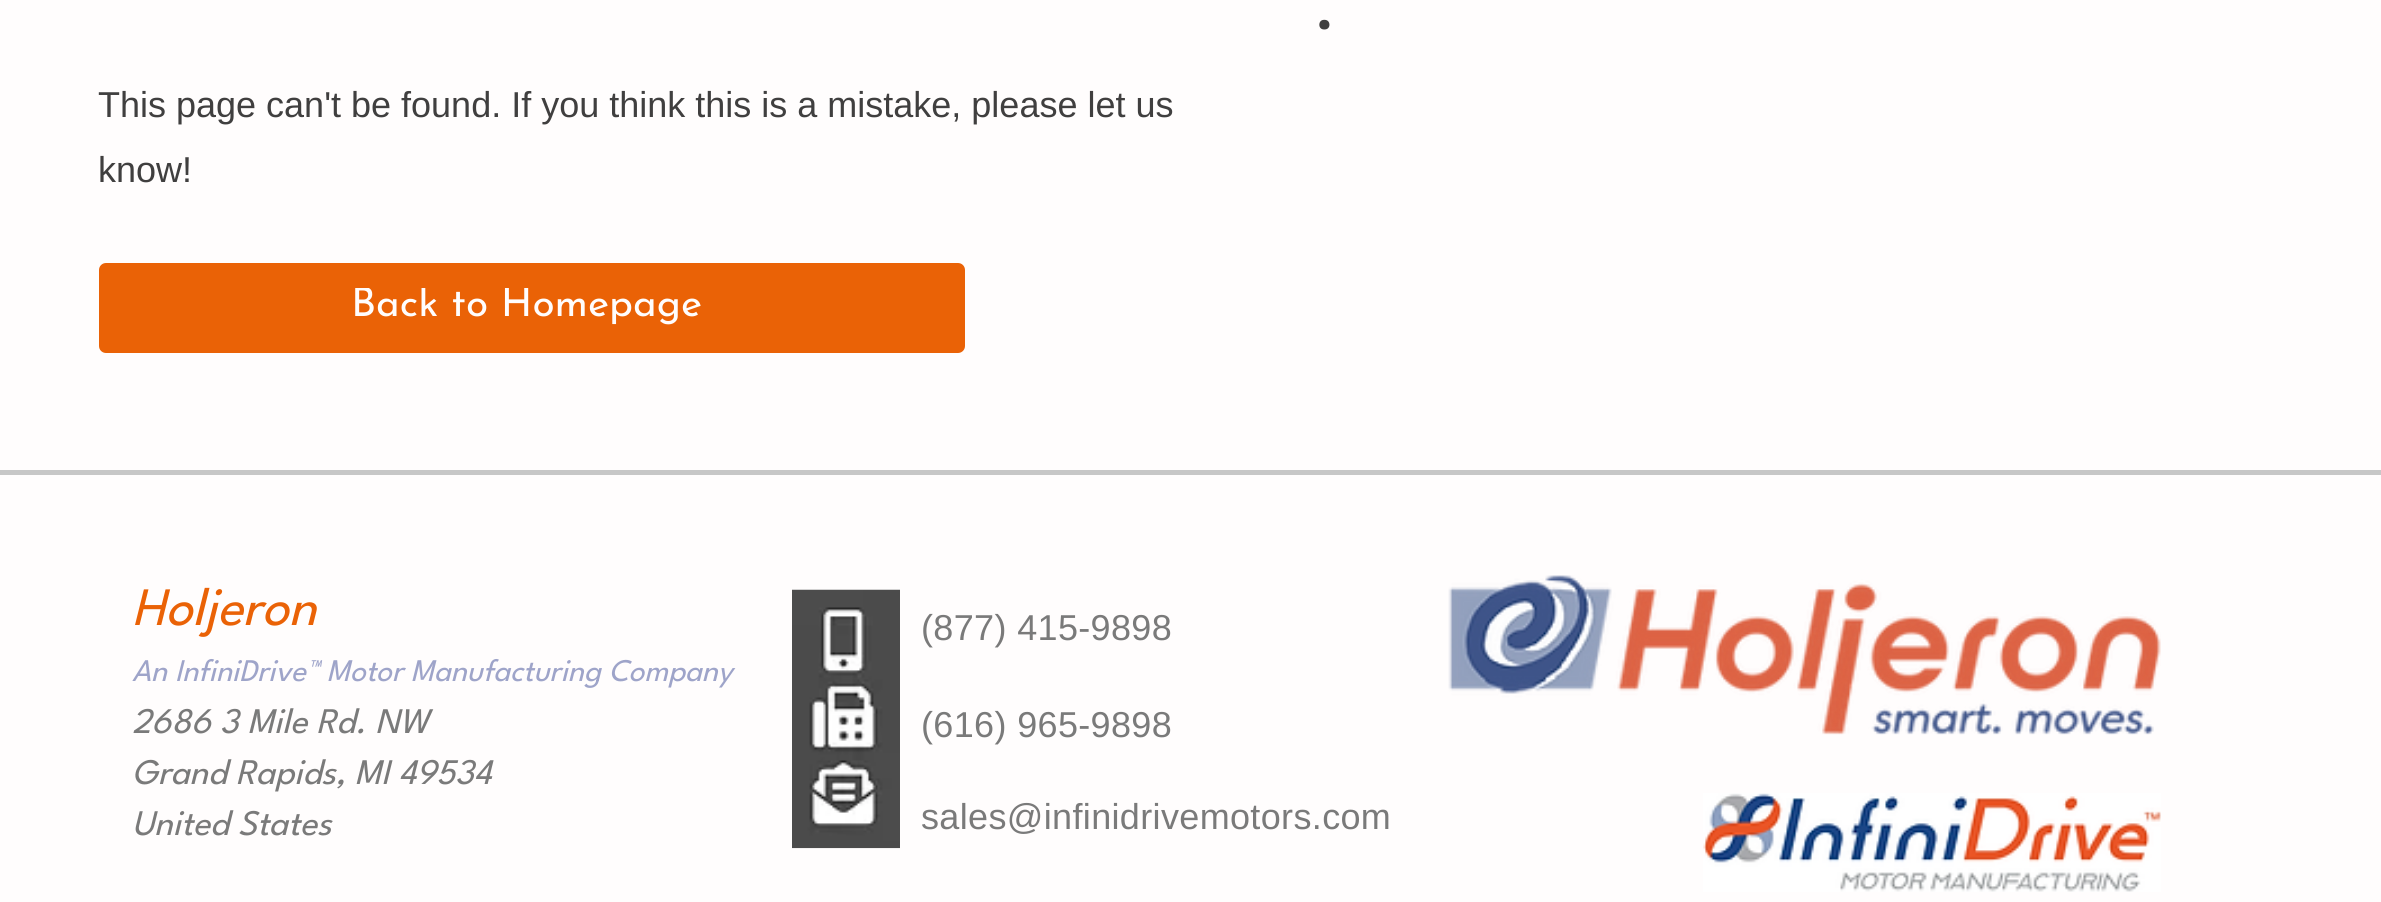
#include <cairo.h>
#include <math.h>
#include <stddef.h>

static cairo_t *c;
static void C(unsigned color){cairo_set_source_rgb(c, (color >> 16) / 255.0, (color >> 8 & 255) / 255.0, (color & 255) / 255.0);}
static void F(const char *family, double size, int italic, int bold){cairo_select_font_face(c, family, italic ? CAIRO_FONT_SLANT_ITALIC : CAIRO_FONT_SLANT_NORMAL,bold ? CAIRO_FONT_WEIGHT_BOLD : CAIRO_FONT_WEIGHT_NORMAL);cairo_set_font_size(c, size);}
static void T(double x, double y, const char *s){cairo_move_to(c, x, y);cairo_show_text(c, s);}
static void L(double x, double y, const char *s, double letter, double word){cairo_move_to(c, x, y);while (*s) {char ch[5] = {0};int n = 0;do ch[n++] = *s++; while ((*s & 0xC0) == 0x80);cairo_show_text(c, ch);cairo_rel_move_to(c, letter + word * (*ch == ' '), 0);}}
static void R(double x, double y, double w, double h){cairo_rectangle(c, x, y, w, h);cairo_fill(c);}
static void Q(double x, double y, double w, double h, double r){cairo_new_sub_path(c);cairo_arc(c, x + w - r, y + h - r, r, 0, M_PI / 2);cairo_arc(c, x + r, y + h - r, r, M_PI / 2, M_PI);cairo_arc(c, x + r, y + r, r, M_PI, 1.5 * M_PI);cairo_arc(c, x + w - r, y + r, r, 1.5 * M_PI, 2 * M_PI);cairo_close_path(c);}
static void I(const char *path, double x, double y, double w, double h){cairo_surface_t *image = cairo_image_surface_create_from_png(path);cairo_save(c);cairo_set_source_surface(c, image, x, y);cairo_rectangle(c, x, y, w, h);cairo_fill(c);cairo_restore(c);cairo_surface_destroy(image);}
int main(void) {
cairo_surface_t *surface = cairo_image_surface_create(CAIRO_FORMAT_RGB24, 2381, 902);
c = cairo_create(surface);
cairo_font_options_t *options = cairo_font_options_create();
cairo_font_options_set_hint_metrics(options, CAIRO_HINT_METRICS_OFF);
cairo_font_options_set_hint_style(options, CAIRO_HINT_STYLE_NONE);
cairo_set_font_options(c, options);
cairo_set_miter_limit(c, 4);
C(0xfffdfd);
cairo_paint(c);
F("Roboto",90,0,0);
C(0x403f3f);
T(1313,29,".");
F("Liberation Sans",36,0,0);
T(98,117,"This page can't be found. If you think this is a mistake, please let us");
T(98,182,"know!");
C(0xea6206);
Q(99,263,866,90,7);
cairo_fill(c);
cairo_save(c);
cairo_rectangle(c,351,288,351,41);
cairo_clip(c);
F("Josefin Sans",40.5,0,0);
C(0xfffdfd);
T(351,316,"Back to Homepage");
cairo_restore(c);
C(0xc7c7c7);
R(0,470,2381,5);
F("League Spartan",54,1,0);
C(0xea6206);
T(132,625,"Holjeron");
F("League Spartan",31.5,1,0);
C(0x9ea4c9);
T(132,681,"An InfiniDrive™ Motor Manufacturing Company");
F("League Spartan",36,1,0);
C(0x7a7a7a);
T(132,733,"2686 3 Mile Rd. NW");
T(132,784,"Grand Rapids, MI 49534");
T(132,835,"United States");
I("1.png",792,589,108,260);
F("Liberation Sans",36,0,0);
L(921,640,"(877) 415-9898",.35,0);
I("2.png",1448,575,713,160);
L(921,737,"(616) 965-9898",.35,0);
L(921,829,"sales@infinidrivemotors.com",.35,0);
I("3.png",1703,793,458,99);
cairo_surface_write_to_png(surface, "o.png");
cairo_font_options_destroy(options);
cairo_destroy(c);
cairo_surface_destroy(surface);
return 0;
}
